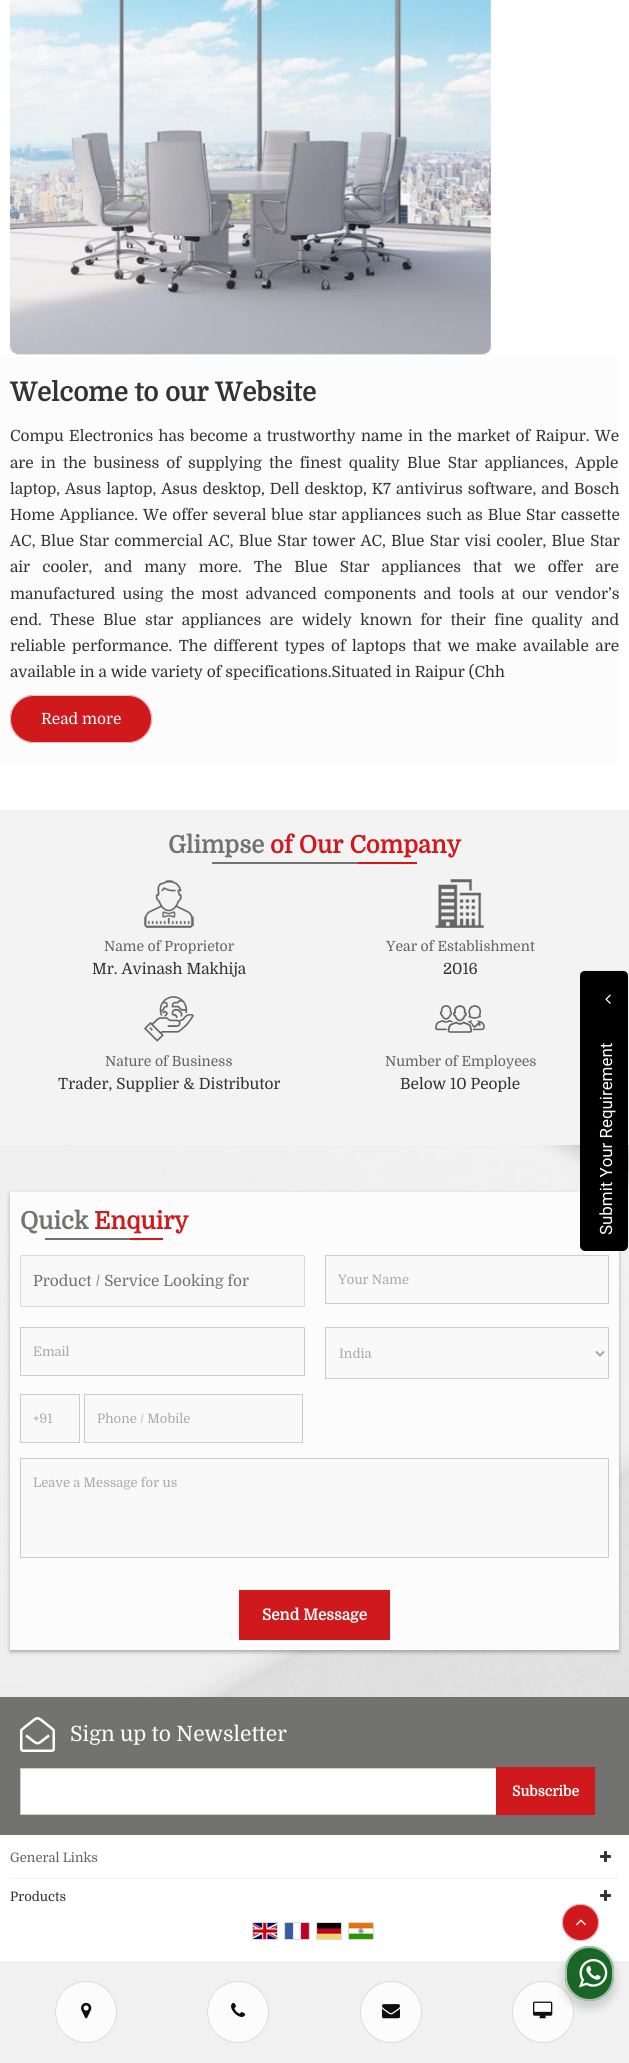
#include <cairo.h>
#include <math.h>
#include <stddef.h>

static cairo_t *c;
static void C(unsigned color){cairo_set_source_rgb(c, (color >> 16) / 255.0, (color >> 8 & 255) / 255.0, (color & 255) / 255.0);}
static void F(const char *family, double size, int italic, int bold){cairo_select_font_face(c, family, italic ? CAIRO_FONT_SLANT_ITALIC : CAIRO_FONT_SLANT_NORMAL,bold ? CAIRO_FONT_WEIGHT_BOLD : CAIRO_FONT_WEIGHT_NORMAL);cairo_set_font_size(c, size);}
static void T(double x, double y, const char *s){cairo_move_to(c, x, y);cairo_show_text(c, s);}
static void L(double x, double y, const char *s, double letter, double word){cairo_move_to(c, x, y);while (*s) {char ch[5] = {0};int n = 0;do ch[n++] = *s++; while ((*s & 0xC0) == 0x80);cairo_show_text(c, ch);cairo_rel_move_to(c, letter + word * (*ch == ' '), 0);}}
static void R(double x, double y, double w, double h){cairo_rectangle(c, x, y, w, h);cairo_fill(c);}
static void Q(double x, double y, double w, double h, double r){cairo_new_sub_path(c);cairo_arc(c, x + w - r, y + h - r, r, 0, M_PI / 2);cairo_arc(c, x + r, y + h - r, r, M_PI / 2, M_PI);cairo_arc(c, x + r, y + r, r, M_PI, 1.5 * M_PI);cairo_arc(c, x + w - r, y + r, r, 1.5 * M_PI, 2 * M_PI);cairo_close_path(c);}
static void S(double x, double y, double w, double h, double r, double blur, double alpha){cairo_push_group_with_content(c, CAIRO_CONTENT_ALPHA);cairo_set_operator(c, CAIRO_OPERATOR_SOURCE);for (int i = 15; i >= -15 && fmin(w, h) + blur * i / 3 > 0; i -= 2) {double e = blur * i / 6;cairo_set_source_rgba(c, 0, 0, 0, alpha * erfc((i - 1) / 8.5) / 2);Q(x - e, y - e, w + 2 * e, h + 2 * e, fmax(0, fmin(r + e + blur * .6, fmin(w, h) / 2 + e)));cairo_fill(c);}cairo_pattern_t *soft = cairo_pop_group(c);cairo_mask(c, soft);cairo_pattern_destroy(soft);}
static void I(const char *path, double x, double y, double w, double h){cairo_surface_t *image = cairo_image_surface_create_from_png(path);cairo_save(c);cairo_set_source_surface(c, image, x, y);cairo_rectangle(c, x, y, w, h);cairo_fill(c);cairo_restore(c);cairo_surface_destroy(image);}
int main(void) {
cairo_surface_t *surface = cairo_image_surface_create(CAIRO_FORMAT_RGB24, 629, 2063);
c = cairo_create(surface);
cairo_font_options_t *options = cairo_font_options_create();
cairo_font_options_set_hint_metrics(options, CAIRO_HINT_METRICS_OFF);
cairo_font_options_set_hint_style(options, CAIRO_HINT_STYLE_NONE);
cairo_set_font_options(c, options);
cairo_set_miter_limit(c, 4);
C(0xffffff);
cairo_paint(c);
I("1.png",10,0,481,356);
C(0xfcfcfc);
R(0,357,619,406);
F("Domine",26,0,1);
C(0x333333);
T(10,401,"Welcome to our Website");
F("Domine",15.4,0,0);
L(10,441,"Compu Electronics has become a trustworthy name in the market of Raipur. We",0,1.4);
L(10,468,"are in the business of supplying the finest quality Blue Star appliances, Apple",0,3.25);
L(10,494,"laptop, Asus laptop, Asus desktop, Dell desktop, K7 antivirus software, and Bosch",0,1);
L(10,520,"Home Appliance. We offer several blue star appliances such as Blue Star cassette",0,1);
L(10,546,"AC, Blue Star commercial AC, Blue Star tower AC, Blue Star visi cooler, Blue Star",0,1.25);
L(10,572,"air cooler, and many more. The Blue Star appliances that we offer are",0,8.1);
L(10,599,"manufactured using the most advanced components and tools at our vendor’s",0,3.25);
L(10,625,"end. These Blue star appliances are widely known for their fine quality and",0,4.5);
L(10,651,"reliable performance. The different types of laptops that we make available are",0,2.5);
T(10,677,"available in a wide variety of specifications.Situated in Raipur (Chh");
C(0xcf191c);
Q(10,695,142,48,24);
cairo_fill(c);
Q(10.5,695.5,141,47,23.5);
cairo_set_source_rgba(c,1,1,1,0.7);
cairo_set_line_width(c,1);
cairo_stroke(c);
C(0xffffff);
T(41,724,"Read more");
C(0xf3f3f3);
R(0,810,629,335);
F("Domine",24,0,1);
C(0x727271);
T(168,853,"Glimpse");
C(0xcf191c);
T(270,853,"of Our Company");
C(0x727271);
R(212,862,146,2);
C(0xcf191c);
R(358,862,59,2);
I("2.png",144,880,50,48);
F("Domine",14,0,0);
C(0x636363);
T(104,951,"Name of Proprietor");
F("Domine",15.4,0,0);
C(0x333333);
T(92,974,"Mr. Avinash Makhija");
I("3.png",435,879,49,49);
F("Domine",14,0,0);
C(0x636363);
T(386,951,"Year of Establishment");
F("Domine",15.4,0,0);
C(0x333333);
T(443,974,"2016");
I("4.png",144,996,50,46);
F("Domine",14,0,0);
C(0x636363);
T(105,1066,"Nature of Business");
F("Domine",15.4,0,0);
C(0x333333);
T(58,1089,"Trader, Supplier & Distributor");
I("5.png",435,1005,50,28);
F("Domine",14,0,0);
C(0x636363);
T(385,1066,"Number of Employees");
F("Domine",15.4,0,0);
C(0x333333);
T(400,1089,"Below 10 People");
I("6.png",0,1145,629,552);
C(0x000000);
S(10,1194,609,458,0,2,.3);
C(0xfcfcfc);
R(10,1192,609,458);
F("Domine",24,0,1);
C(0x727271);
T(20,1229,"Quick");
C(0xcf191c);
T(94,1229,"Enquiry");
C(0x727271);
R(45,1238,85,2);
C(0xcf191c);
R(130,1238,33,2);
C(0xfaf9f9);
Q(20.5,1255.5,284,51,1.5);
cairo_fill_preserve(c);
C(0xdad9d9);
cairo_stroke(c);
F("Domine",15.4,0,0);
C(0x727271);
T(33,1286,"Product / Service Looking for");
C(0xfaf9f9);
cairo_rectangle(c,325.5,1255.5,283,48);
cairo_fill_preserve(c);
C(0xcccccc);
cairo_stroke(c);
F("Domine",13,0,0);
C(0xaaaaaa);
T(338,1284,"Your Name");
C(0xfaf9f9);
cairo_rectangle(c,20.5,1327.5,284,48);
cairo_fill_preserve(c);
C(0xcccccc);
cairo_stroke(c);
C(0xaaaaaa);
T(33,1356,"Email");
C(0xfaf9f9);
cairo_rectangle(c,325.5,1327.5,283,51);
cairo_fill_preserve(c);
C(0xcccccc);
cairo_stroke(c);
cairo_new_path(c);
cairo_move_to(c,596,1351.5);
cairo_line_to(c,600,1355.5);
cairo_line_to(c,604,1351.5);
C(0xaaaaaa);
cairo_set_line_width(c,2);
cairo_stroke(c);
T(339,1358,"India");
C(0xfaf9f9);
cairo_rectangle(c,20.5,1394.5,59,48);
cairo_fill_preserve(c);
C(0xcccccc);
cairo_set_line_width(c,1);
cairo_stroke(c);
C(0xaaaaaa);
T(33,1423,"+91");
C(0xfaf9f9);
cairo_rectangle(c,84.5,1394.5,218,48);
cairo_fill_preserve(c);
C(0xcccccc);
cairo_stroke(c);
C(0xaaaaaa);
T(97,1423,"Phone / Mobile");
C(0xfaf9f9);
cairo_rectangle(c,20.5,1458.5,588,99);
cairo_fill_preserve(c);
C(0xcccccc);
cairo_stroke(c);
C(0xaaaaaa);
T(33,1487,"Leave a Message for us");
C(0xcf191c);
R(239,1590,151,50);
F("Domine",15.4,0,1);
C(0xffffff);
T(262,1620,"Send Message");
C(0x727271);
R(0,1697,629,138);
I("7.png",20,1717,35,35);
F("Domine",21,0,0);
C(0xffffff);
T(70,1741,"Sign up to Newsletter");
R(21,1769,475,45);
cairo_rectangle(c,20.5,1768.5,478,46);
C(0xcccccc);
cairo_stroke(c);
C(0xcf191c);
R(496,1767,99,48);
F("Domine",14,0,1);
C(0xffffff);
T(512,1796,"Subscribe");
C(0xf2f2f2);
R(10,1878,609,1);
F("Domine",13,0,0);
C(0x636363);
T(10,1862,"General Links");
I("8.png",600,1851,11,11);
C(0x333333);
T(10,1901,"Products");
I("8.png",600,1890,11,11);
cairo_rectangle(c,252.5,1922.5,25,17);
C(0xd9d9d9);
cairo_stroke(c);
cairo_rectangle(c,284.5,1922.5,25,17);
cairo_stroke(c);
cairo_rectangle(c,316.5,1922.5,25,17);
cairo_stroke(c);
cairo_rectangle(c,348.5,1922.5,25,17);
cairo_stroke(c);
I("9.png",253,1923,24,16);
I("10.png",285,1923,24,16);
I("11.png",317,1923,24,16);
I("12.png",349,1923,24,16);
C(0xf1f1f1);
R(0,1961,629,102);
C(0xfcfcfc);
cairo_arc(c,86,2012,31,0,2 * M_PI);
cairo_fill(c);
cairo_arc(c,86,2012,30.5,0,2 * M_PI);
cairo_set_source_rgba(c,0,0,0,0.13);
cairo_stroke(c);
I("13.png",81,2002,11,17);
C(0xfcfcfc);
cairo_arc(c,238,2012,31,0,2 * M_PI);
cairo_fill(c);
cairo_arc(c,238,2012,30.5,0,2 * M_PI);
cairo_set_source_rgba(c,0,0,0,0.13);
cairo_stroke(c);
I("14.png",231,2002,15,15);
C(0xfcfcfc);
cairo_arc(c,391,2012,31,0,2 * M_PI);
cairo_fill(c);
cairo_arc(c,391,2012,30.5,0,2 * M_PI);
cairo_set_source_rgba(c,0,0,0,0.13);
cairo_stroke(c);
I("15.png",382,2004,18,15);
C(0xfcfcfc);
cairo_arc(c,543,2012,31,0,2 * M_PI);
cairo_fill(c);
cairo_arc(c,543,2012,30.5,0,2 * M_PI);
cairo_set_source_rgba(c,0,0,0,0.13);
cairo_stroke(c);
I("16.png",533,2001,20,18);
C(0x000000);
cairo_new_path(c);
cairo_move_to(c,580,1246);
cairo_line_to(c,580,976);
cairo_curve_to(c,580,973,582,971,585,971);
cairo_line_to(c,623,971);
cairo_curve_to(c,626,971,628,973,628,976);
cairo_line_to(c,628,1246);
cairo_curve_to(c,628,1248,626,1251,623,1251);
cairo_line_to(c,585,1251);
cairo_curve_to(c,582,1251,580,1248,580,1246);
cairo_close_path(c);
cairo_fill(c);
cairo_new_path(c);
cairo_move_to(c,580.5,1245.5);
cairo_line_to(c,580.5,975.5);
cairo_curve_to(c,580.5,973,582.5,971,585,971);
cairo_line_to(c,623,971);
cairo_curve_to(c,625.5,971,627.5,973,627.5,975.5);
cairo_line_to(c,627.5,1245.5);
cairo_curve_to(c,627.5,1248,625.5,1250,623,1250);
cairo_line_to(c,585,1250);
cairo_curve_to(c,582.5,1250,580.5,1248,580.5,1245.5);
cairo_close_path(c);
cairo_set_source_rgba(c,0,0,0,0.13);
cairo_stroke(c);
I("17.png",605,994,6,10);
F("Roboto",16.9,0,0);
C(0xffffff);
cairo_save(c);
cairo_translate(c,612,1235);
cairo_rotate(c,-90 * M_PI / 180);
T(0,0,"Submit Your Requirement");
cairo_restore(c);
C(0xcf191c);
cairo_new_path(c);
cairo_arc(c,580.5,1922.5,18.5,0,2 * M_PI);
cairo_fill(c);
cairo_arc(c,580.5,1922.5,18,0,2 * M_PI);
cairo_set_source_rgba(c,1,1,1,0.7);
cairo_stroke(c);
I("18.png",576,1919,10,7);
C(0x000000);
S(563,1950,53,59,26.5,4,.14);
C(0x196626);
Q(565,1946,49,55,24.5);
cairo_fill(c);
Q(566,1947,47,53,23.5);
cairo_set_source_rgba(c,1,1,1,0.6);
cairo_set_line_width(c,2);
cairo_stroke(c);
I("19.png",579,1959,29,29);
cairo_surface_write_to_png(surface, "o.png");
cairo_font_options_destroy(options);
cairo_destroy(c);
cairo_surface_destroy(surface);
return 0;
}
